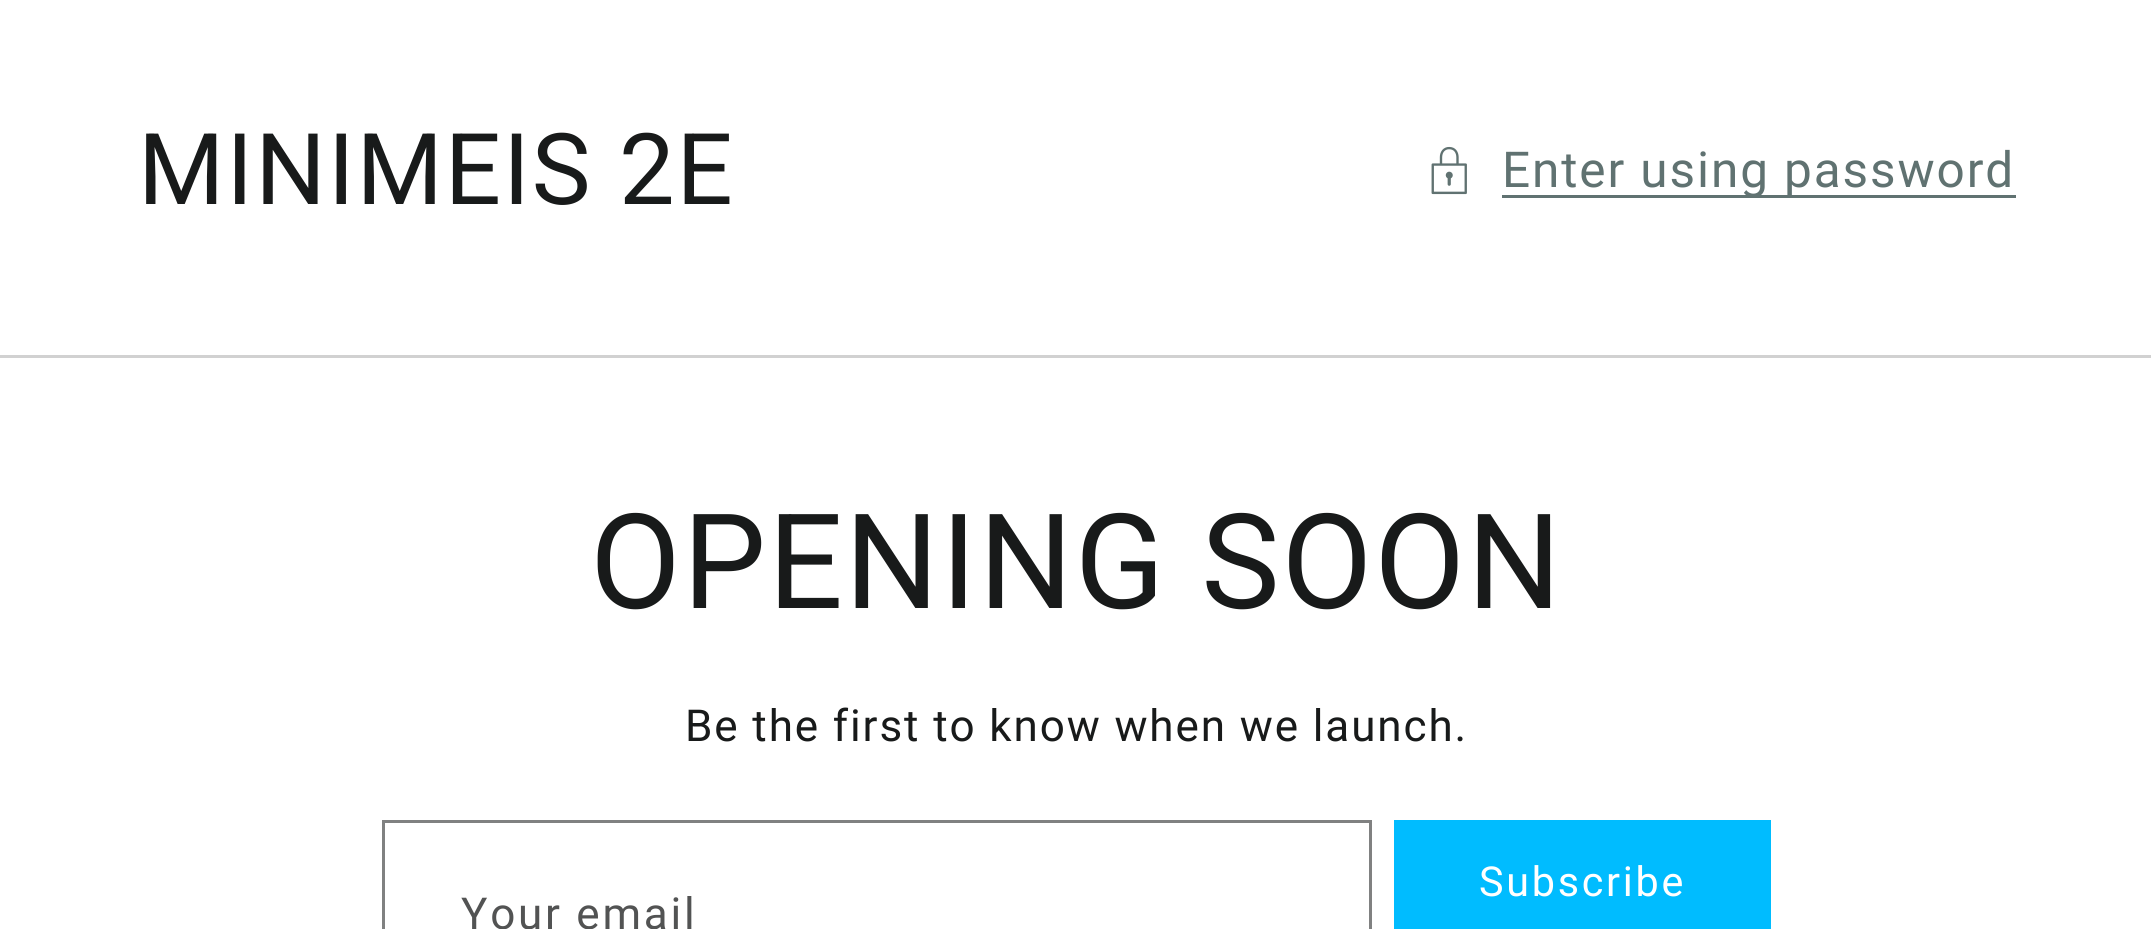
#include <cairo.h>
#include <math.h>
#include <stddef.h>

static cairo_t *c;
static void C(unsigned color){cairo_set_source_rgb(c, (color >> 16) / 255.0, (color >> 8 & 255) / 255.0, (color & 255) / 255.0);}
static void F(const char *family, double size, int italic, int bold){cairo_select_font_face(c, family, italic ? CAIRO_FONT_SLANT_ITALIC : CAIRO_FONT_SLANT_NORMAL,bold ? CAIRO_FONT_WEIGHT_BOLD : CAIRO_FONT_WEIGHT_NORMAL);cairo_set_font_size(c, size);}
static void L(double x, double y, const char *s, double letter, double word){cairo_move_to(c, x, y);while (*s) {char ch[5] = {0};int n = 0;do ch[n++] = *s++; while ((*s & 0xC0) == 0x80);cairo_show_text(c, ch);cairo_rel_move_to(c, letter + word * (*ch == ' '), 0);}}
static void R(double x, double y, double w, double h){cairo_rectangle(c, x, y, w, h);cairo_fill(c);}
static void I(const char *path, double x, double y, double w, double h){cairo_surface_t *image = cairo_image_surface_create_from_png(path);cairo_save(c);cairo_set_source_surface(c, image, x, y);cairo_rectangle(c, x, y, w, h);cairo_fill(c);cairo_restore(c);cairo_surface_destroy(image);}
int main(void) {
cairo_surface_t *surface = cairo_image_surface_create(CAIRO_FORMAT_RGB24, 2151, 929);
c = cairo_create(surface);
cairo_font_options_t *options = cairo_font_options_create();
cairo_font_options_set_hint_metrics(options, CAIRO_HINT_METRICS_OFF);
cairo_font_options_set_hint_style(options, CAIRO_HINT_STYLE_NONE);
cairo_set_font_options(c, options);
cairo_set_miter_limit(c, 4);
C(0xffffff);
cairo_paint(c);
F("Roboto",99,0,0);
C(0x181a1a);
L(138,204,"MINIMEIS 2E",1.9,0);
I("1.png",1431,146,36,49);
C(0x607271);
R(1502,195,514,3);
F("Roboto",49.5,0,0);
L(1502,187,"Enter using password",1.9,0);
C(0xd1d1d1);
R(0,355,2151,3);
F("Roboto",132,0,0);
C(0x181a1a);
L(590,608,"OPENING SOON",1.9,0);
F("Roboto",44,0,0);
L(685,741,"Be the first to know when we launch.",1.9,0);
cairo_rectangle(c,1395.5,821.5,374,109);
C(0x00bcff);
cairo_set_line_width(c,3);
cairo_stroke(c);
R(1397,823,371,106);
F("Roboto",41.25,0,0);
C(0xffffff);
L(1479,896,"Subscribe",2.75,0);
cairo_rectangle(c,383.5,821.5,987,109);
C(0x808181);
cairo_stroke(c);
F("Roboto",44,0,0);
C(0x525353);
L(461,929,"Your email",2.75,0);
cairo_surface_write_to_png(surface, "o.png");
cairo_font_options_destroy(options);
cairo_destroy(c);
cairo_surface_destroy(surface);
return 0;
}
